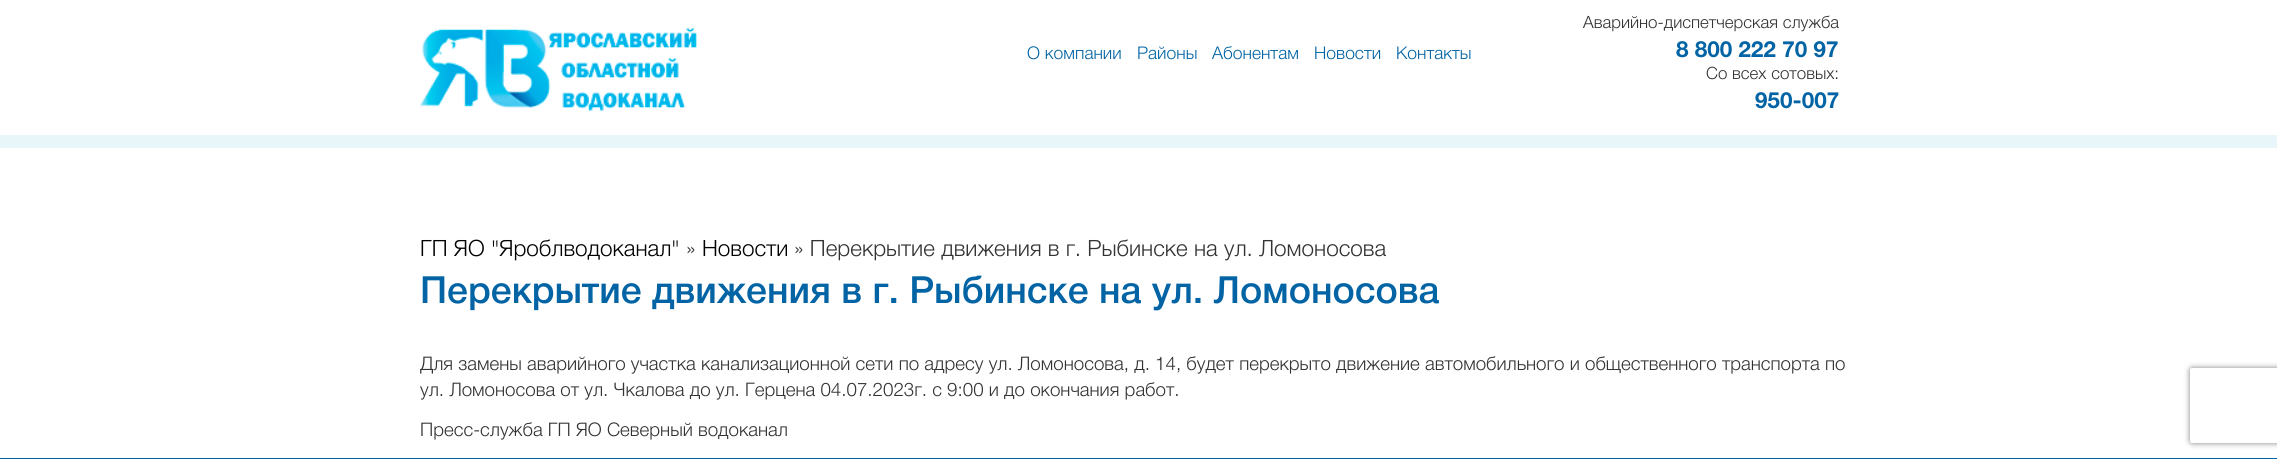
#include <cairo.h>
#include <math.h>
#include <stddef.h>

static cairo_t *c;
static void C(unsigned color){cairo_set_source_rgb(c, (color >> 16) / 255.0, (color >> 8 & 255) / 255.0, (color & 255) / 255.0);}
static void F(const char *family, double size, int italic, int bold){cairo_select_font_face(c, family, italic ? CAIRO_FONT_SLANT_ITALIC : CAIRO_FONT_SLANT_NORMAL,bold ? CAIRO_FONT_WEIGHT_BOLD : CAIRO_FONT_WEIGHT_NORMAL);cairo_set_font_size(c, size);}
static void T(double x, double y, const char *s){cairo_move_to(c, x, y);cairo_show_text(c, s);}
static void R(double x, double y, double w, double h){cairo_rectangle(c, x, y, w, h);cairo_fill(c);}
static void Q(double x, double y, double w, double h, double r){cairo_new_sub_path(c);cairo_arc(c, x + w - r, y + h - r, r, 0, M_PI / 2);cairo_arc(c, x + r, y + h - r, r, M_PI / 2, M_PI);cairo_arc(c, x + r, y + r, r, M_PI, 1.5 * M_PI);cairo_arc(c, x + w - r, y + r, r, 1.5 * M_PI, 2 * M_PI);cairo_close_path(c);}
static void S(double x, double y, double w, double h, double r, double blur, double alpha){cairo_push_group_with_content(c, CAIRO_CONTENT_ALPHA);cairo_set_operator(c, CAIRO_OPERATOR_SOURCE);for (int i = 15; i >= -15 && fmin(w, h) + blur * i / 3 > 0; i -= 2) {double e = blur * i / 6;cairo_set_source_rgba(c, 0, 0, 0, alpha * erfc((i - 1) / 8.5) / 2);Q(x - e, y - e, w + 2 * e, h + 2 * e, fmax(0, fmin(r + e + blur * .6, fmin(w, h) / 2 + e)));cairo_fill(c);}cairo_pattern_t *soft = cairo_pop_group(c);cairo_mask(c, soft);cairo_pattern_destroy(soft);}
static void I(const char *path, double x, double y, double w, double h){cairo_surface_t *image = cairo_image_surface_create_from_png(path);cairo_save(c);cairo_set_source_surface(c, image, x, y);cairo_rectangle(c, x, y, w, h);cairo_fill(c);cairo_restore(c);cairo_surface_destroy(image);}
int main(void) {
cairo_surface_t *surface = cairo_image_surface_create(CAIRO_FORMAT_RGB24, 2277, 459);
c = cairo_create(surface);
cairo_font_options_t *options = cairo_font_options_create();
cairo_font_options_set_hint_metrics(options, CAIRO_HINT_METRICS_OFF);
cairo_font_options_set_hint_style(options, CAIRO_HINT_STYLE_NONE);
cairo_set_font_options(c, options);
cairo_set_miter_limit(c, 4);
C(0xffffff);
cairo_paint(c);
I("1.png",420,28,277,84);
F("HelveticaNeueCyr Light",17.5,0,0);
C(0x0264a5);
T(1027,59,"О компании");
T(1137,59,"Районы");
T(1212,59,"Абонентам");
T(1314,59,"Новости");
T(1396,59,"Контакты");
F("HelveticaNeueCyr Light",16.9,0,0);
C(0x333333);
T(1583,28,"Аварийно-диспетчерская служба");
F("HelveticaNeueCyr",22.5,0,1);
C(0x0264a5);
T(1676,57,"8 800 222 70 97");
F("HelveticaNeueCyr Light",16.9,0,0);
C(0x333333);
T(1706,79,"Со всех сотовых:");
F("HelveticaNeueCyr",22.5,0,1);
C(0x0264a5);
T(1755,108,"950-007");
C(0xe8f5f9);
R(0,135,2277,13);
F("HelveticaNeueCyr Light",22.5,0,0);
C(0x000000);
T(420,256,"ГП ЯО \"Яроблводоканал\"");
C(0x333333);
T(686,256,"»");
C(0x000000);
T(702,256,"Новости");
C(0x333333);
T(794,256,"» Перекрытие движения в г. Рыбинске на ул. Ломоносова");
F("HelveticaNeueCyr Medium",37.5,0,0);
C(0x0264a5);
T(420,303,"Перекрытие движения в г. Рыбинске на ул. Ломоносова");
F("HelveticaNeueCyr Light",18.75,0,0);
C(0x333333);
T(420,370,"Для замены аварийного участка канализационной сети по адресу ул. Ломоносова, д. 14, будет перекрыто движение автомобильного и общественного транспорта по");
T(420,396,"ул. Ломоносова от ул. Чкалова до ул. Герцена 04.07.2023г. с 9:00 и до окончания работ.");
T(420,436,"Пресс-служба ГП ЯО Северный водоканал");
cairo_save(c);
cairo_set_fill_rule(c,CAIRO_FILL_RULE_EVEN_ODD);
cairo_new_path(c);
cairo_move_to(c,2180,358);
cairo_line_to(c,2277,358);
cairo_line_to(c,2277,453);
cairo_line_to(c,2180,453);
cairo_close_path(c);
cairo_move_to(c,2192.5,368);
cairo_line_to(c,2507.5,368);
cairo_curve_to(c,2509,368,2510,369,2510,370.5);
cairo_line_to(c,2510,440.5);
cairo_curve_to(c,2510,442,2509,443,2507.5,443);
cairo_line_to(c,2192.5,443);
cairo_curve_to(c,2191,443,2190,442,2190,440.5);
cairo_line_to(c,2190,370.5);
cairo_curve_to(c,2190,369,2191,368,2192.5,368);
cairo_close_path(c);
cairo_clip(c);
C(0x808080);
S(2190,368,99,75,2.5,3,1);
cairo_restore(c);
C(0x0264a5);
R(0,458,2277,1);
cairo_surface_write_to_png(surface, "o.png");
cairo_font_options_destroy(options);
cairo_destroy(c);
cairo_surface_destroy(surface);
return 0;
}
